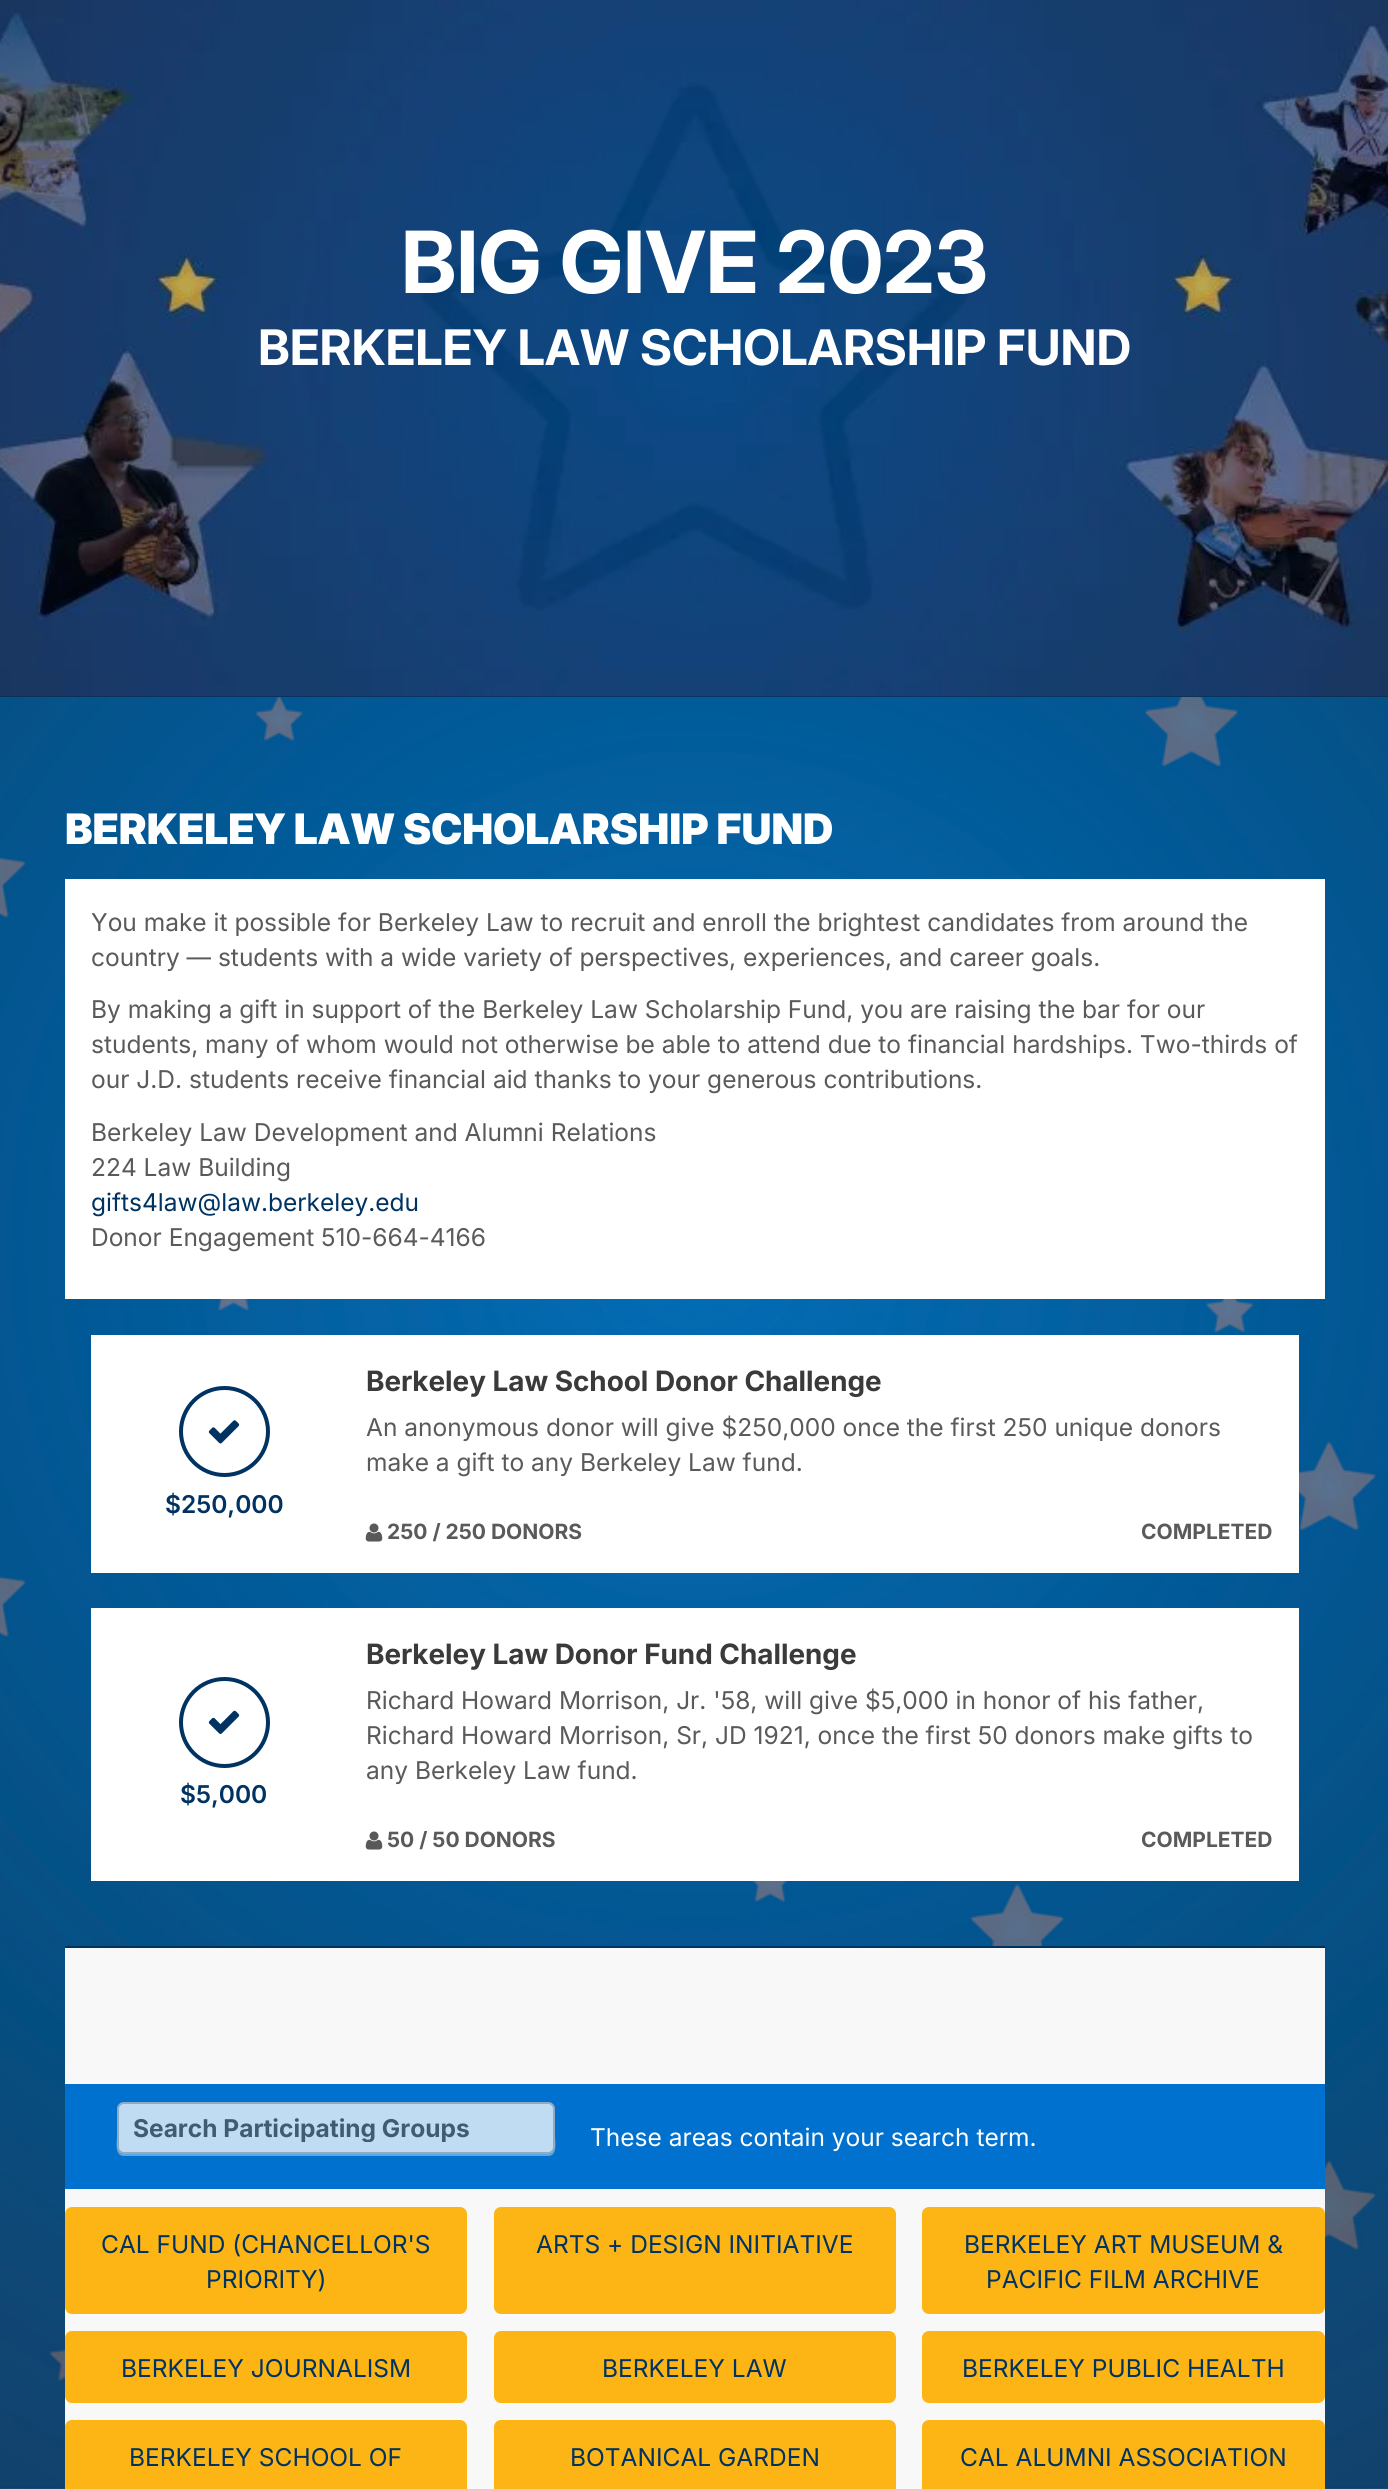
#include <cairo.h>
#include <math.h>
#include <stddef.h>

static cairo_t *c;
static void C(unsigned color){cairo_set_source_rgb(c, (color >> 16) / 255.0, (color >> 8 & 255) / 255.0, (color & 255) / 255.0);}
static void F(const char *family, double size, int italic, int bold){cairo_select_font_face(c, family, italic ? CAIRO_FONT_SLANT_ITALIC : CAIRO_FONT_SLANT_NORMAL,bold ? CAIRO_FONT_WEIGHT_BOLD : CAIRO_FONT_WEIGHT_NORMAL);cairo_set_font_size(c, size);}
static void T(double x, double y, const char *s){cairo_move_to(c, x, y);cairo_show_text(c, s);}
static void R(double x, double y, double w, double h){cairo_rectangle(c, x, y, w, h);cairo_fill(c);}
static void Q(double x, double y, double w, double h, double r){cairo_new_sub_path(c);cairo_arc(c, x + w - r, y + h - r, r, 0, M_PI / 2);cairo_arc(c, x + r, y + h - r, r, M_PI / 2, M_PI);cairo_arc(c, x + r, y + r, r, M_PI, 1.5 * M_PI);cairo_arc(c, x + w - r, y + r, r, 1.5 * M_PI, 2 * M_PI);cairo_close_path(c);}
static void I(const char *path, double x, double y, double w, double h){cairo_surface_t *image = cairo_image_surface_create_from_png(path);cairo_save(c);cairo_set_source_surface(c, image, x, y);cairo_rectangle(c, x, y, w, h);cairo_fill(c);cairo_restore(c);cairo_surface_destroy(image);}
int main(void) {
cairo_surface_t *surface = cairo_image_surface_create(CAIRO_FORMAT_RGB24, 1388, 2489);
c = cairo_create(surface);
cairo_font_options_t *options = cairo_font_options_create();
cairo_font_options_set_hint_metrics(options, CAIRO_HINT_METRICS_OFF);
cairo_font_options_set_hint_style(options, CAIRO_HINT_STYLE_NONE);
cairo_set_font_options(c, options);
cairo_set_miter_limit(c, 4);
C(0xffffff);
cairo_paint(c);
C(0x003262);
R(0,696,1388,1);
I("1.png",0,0,1388,697);
cairo_set_source_rgba(c,0,0,0,0.2);
R(0,0,1388,697);
F("Inter",85.75,0,1);
C(0xffffff);
T(401,293,"BIG GIVE 2023");
F("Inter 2",49,0,1);
T(258,365,"BERKELEY LAW SCHOLARSHIP FUND");
I("2.png",0,697,1388,1792);
F("Inter Black",42,0,0);
T(65,844,"BERKELEY LAW SCHOLARSHIP FUND");
R(65,879,1260,420);
F("Inter",24.5,0,0);
C(0x5a5a5a);
T(91,931,"You make it possible for Berkeley Law to recruit and enroll the brightest candidates from around the");
T(91,966,"country — students with a wide variety of perspectives, experiences, and career goals.");
T(91,1018,"By making a gift in support of the Berkeley Law Scholarship Fund, you are raising the bar for our");
T(91,1053,"students, many of whom would not otherwise be able to attend due to financial hardships. Two-thirds of");
T(91,1088,"our J.D. students receive financial aid thanks to your generous contributions.");
T(91,1141,"Berkeley Law Development and Alumni Relations");
T(91,1176,"224 Law Building");
C(0x003262);
T(91,1211,"gifts4law@law.berkeley.edu");
C(0x5a5a5a);
T(91,1246,"Donor Engagement 510-664-4166");
C(0xffffff);
R(91,1335,1208,238);
cairo_new_path(c);
cairo_arc(c,224.5,1431.5,43.5,0,2 * M_PI);
C(0x003262);
cairo_set_line_width(c,4);
cairo_stroke(c);
I("3.png",208,1420,32,24);
F("Inter SemiBold",24.5,0,0);
T(165,1513,"$250,000");
F("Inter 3",28,0,1);
C(0x3a3a3a);
T(366,1391,"Berkeley Law School Donor Challenge");
F("Inter",24.5,0,0);
C(0x5a5a5a);
T(366,1436,"An anonymous donor will give $250,000 once the first 250 unique donors");
T(366,1471,"make a gift to any Berkeley Law fund.");
I("4.png",365,1523,18,19);
F("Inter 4",21,0,1);
T(387,1539,"250 / 250 DONORS");
T(1141,1539,"COMPLETED");
C(0xffffff);
R(91,1608,1208,273);
cairo_new_path(c);
cairo_arc(c,224.5,1722.5,43.5,0,2 * M_PI);
C(0x003262);
cairo_stroke(c);
I("5.png",208,1710,32,24);
F("Inter SemiBold",24.5,0,0);
T(180,1803,"$5,000");
F("Inter 3",28,0,1);
C(0x3a3a3a);
T(366,1664,"Berkeley Law Donor Fund Challenge");
F("Inter",24.5,0,0);
C(0x5a5a5a);
T(366,1709,"Richard Howard Morrison, Jr. '58, will give $5,000 in honor of his father,");
T(366,1744,"Richard Howard Morrison, Sr, JD 1921, once the first 50 donors make gifts to");
T(366,1779,"any Berkeley Law fund.");
I("6.png",365,1831,18,19);
F("Inter 4",21,0,1);
T(387,1847,"50 / 50 DONORS");
T(1141,1847,"COMPLETED");
C(0xf8f8f8);
R(65,1948,1260,541);
C(0x003262);
R(65,1946,1260,2);
C(0x0071ce);
R(65,2084,1260,105);
C(0x60a7e1);
cairo_new_path(c);
cairo_move_to(c,117,2109);
cairo_line_to(c,117,2136);
cairo_curve_to(c,117,2142,114,2156,124,2156);
cairo_line_to(c,548,2156);
cairo_curve_to(c,558,2156,555,2142,555,2136);
cairo_line_to(c,555,2109);
cairo_line_to(c,555,2147);
cairo_curve_to(c,555,2151,552,2154,548,2154);
cairo_line_to(c,124,2154);
cairo_curve_to(c,120,2154,117,2151,117,2147);
cairo_close_path(c);
cairo_fill(c);
C(0xbfdcf3);
Q(117,2102,438,52,7);
cairo_fill(c);
Q(118,2103,436,50,6);
cairo_set_source_rgba(c,0,0.11,0.204,0.25);
cairo_set_line_width(c,2);
cairo_stroke(c);
cairo_save(c);
cairo_rectangle(c,133,2112,382,30);
cairo_clip(c);
F("Inter 4",24.5,0,1);
C(0x405c73);
T(133,2137,"Search Participating Groups");
cairo_restore(c);
F("Inter",24.5,0,0);
C(0xffffff);
T(590,2146,"These areas contain your search term.");
C(0xfdb515);
Q(65,2207,402,107,7);
cairo_fill(c);
C(0x003262);
T(101,2253,"CAL FUND (CHANCELLOR'S");
T(206,2288,"PRIORITY)");
C(0xfdb515);
Q(494,2207,402,107,7);
cairo_fill(c);
C(0x003262);
T(536,2253,"ARTS + DESIGN INITIATIVE");
C(0xfdb515);
Q(922,2207,403,107,7);
cairo_fill(c);
C(0x003262);
T(964,2253,"BERKELEY ART MUSEUM &");
T(986,2288,"PACIFIC FILM ARCHIVE");
C(0xfdb515);
Q(65,2331,402,72,7);
cairo_fill(c);
C(0x003262);
T(121,2377,"BERKELEY JOURNALISM");
C(0xfdb515);
Q(494,2331,402,72,7);
cairo_fill(c);
C(0x003262);
T(602,2377,"BERKELEY LAW");
C(0xfdb515);
Q(922,2331,403,72,7);
cairo_fill(c);
C(0x003262);
T(962,2377,"BERKELEY PUBLIC HEALTH");
C(0xfdb515);
Q(65,2420,402,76,7);
cairo_fill(c);
C(0x003262);
T(129,2466,"BERKELEY SCHOOL OF");
C(0xfdb515);
Q(494,2420,402,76,7);
cairo_fill(c);
C(0x003262);
T(570,2466,"BOTANICAL GARDEN");
C(0xfdb515);
Q(922,2420,403,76,7);
cairo_fill(c);
C(0x003262);
T(960,2466,"CAL ALUMNI ASSOCIATION");
cairo_surface_write_to_png(surface, "o.png");
cairo_font_options_destroy(options);
cairo_destroy(c);
cairo_surface_destroy(surface);
return 0;
}
